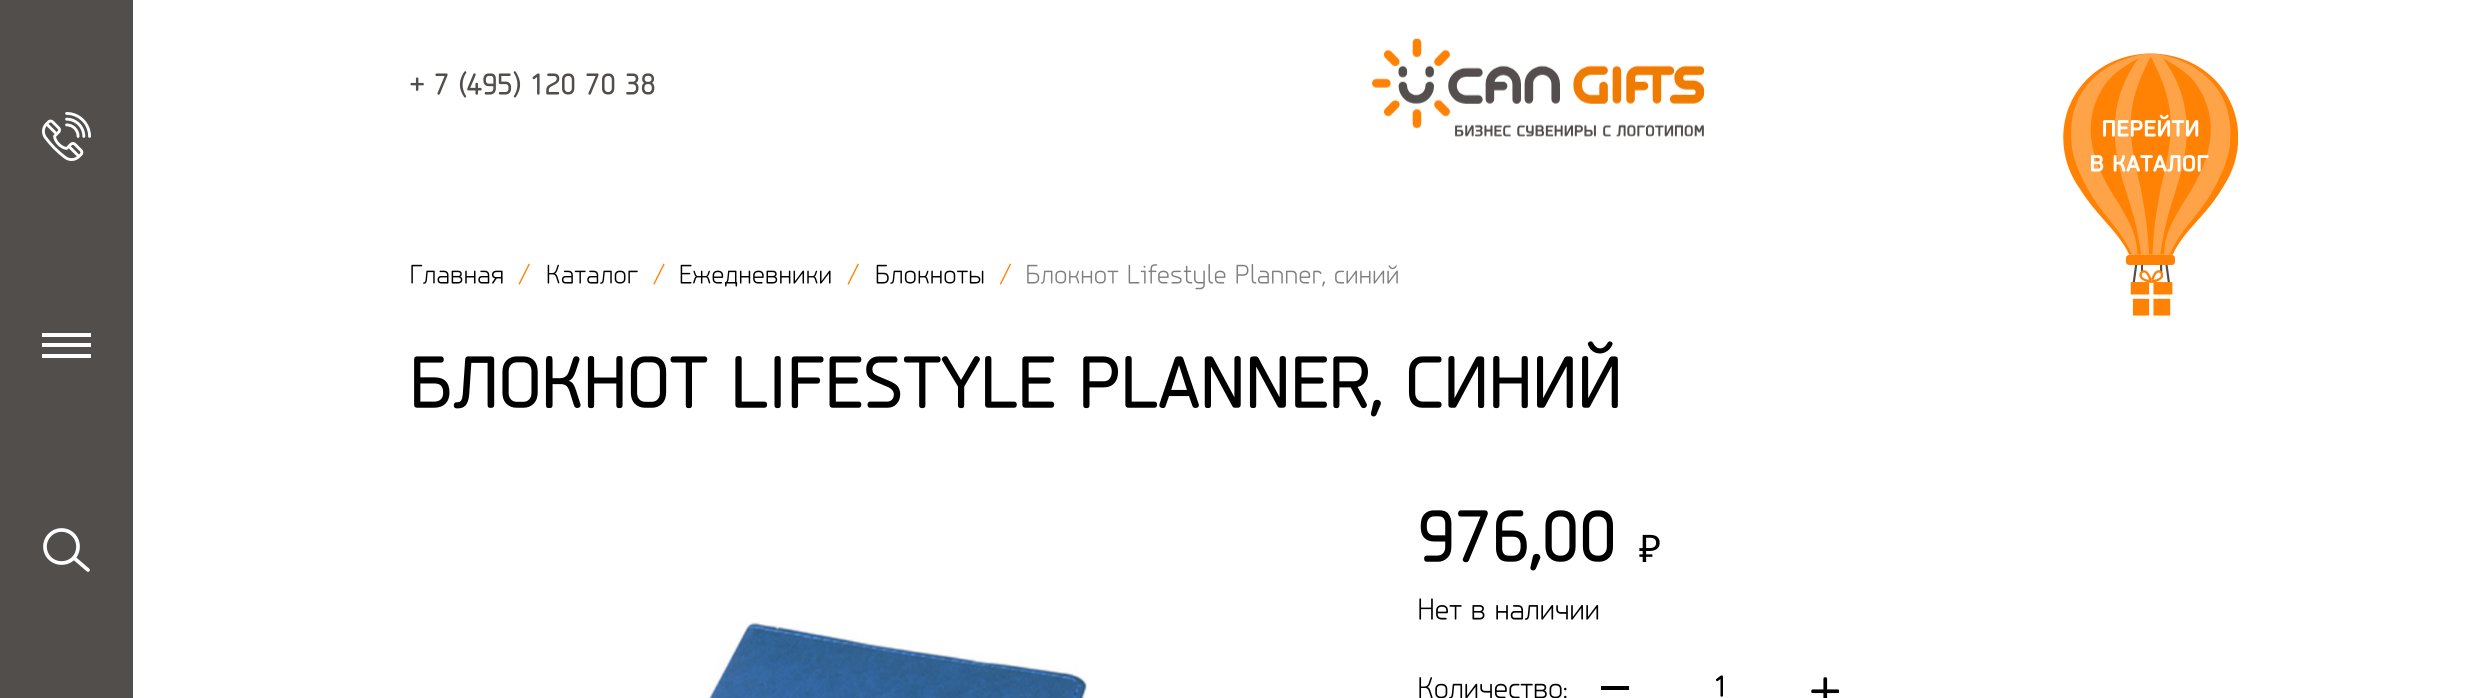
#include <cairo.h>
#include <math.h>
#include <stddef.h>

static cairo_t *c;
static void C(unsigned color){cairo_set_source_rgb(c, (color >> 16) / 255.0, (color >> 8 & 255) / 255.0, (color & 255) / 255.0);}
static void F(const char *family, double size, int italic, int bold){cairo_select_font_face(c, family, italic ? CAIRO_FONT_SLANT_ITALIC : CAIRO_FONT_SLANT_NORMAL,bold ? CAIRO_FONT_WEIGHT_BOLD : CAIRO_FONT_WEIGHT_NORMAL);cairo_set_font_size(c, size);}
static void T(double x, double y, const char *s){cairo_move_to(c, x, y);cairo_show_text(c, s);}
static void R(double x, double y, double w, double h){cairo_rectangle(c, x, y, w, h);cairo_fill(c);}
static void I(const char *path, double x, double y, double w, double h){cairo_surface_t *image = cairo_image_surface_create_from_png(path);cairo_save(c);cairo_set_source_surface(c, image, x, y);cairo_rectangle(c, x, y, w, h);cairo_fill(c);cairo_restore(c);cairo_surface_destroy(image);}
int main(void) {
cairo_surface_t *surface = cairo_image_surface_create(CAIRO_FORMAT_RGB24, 2486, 698);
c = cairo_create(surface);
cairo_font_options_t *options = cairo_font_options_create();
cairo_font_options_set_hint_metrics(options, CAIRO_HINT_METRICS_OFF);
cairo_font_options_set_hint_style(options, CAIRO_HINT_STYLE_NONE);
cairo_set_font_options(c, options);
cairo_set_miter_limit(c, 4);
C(0xffffff);
cairo_paint(c);
C(0x514e4b);
R(0,0,133,698);
I("1.png",42,112,49,49);
C(0xffffff);
R(42,343,49,4);
R(42,333,49,4);
R(42,354,49,4);
cairo_new_path(c);
cairo_move_to(c,78,546.5);
cairo_curve_to(c,78,556,71,563,61.5,563);
cairo_curve_to(c,52.5,563,45,556,45,546.5);
cairo_curve_to(c,45,537.5,52.5,530,61.5,530);
cairo_curve_to(c,71,530,78,537.5,78,546.5);
cairo_close_path(c);
cairo_set_line_width(c,3.7);
cairo_stroke(c);
cairo_new_path(c);
cairo_move_to(c,74,558);
cairo_line_to(c,88,570);
cairo_set_line_cap(c,CAIRO_LINE_CAP_ROUND);
cairo_stroke(c);
I("2.png",410,71,245,27);
I("3.png",1372,38,333,99);
I("4.png",2063,53,175,263);
I("5.png",2103,114,96,23);
I("6.png",2090,155,119,17);
I("7.png",411,264,92,20);
I("8.png",518,263,12,22);
I("9.png",547,264,91,20);
I("10.png",653,263,12,22);
I("11.png",680,264,151,23);
I("8.png",847,263,12,22);
I("12.png",876,264,108,20);
I("13.png",999,263,12,22);
I("14.png",1027,264,371,26);
I("15.png",414,341,1204,76);
I("16.png",1420,510,193,61);
F("Noto Sans",38,0,0);
C(0x000000);
T(1639,562,"₽");
I("17.png",1419,598,180,22);
I("18.png",1419,677,148,21);
R(1601,686,28,4);
I("19.png",1716,675,7,22);
I("20.png",1811,677,28,21);
I("21.png",708,622,379,76);
cairo_surface_write_to_png(surface, "o.png");
cairo_font_options_destroy(options);
cairo_destroy(c);
cairo_surface_destroy(surface);
return 0;
}
